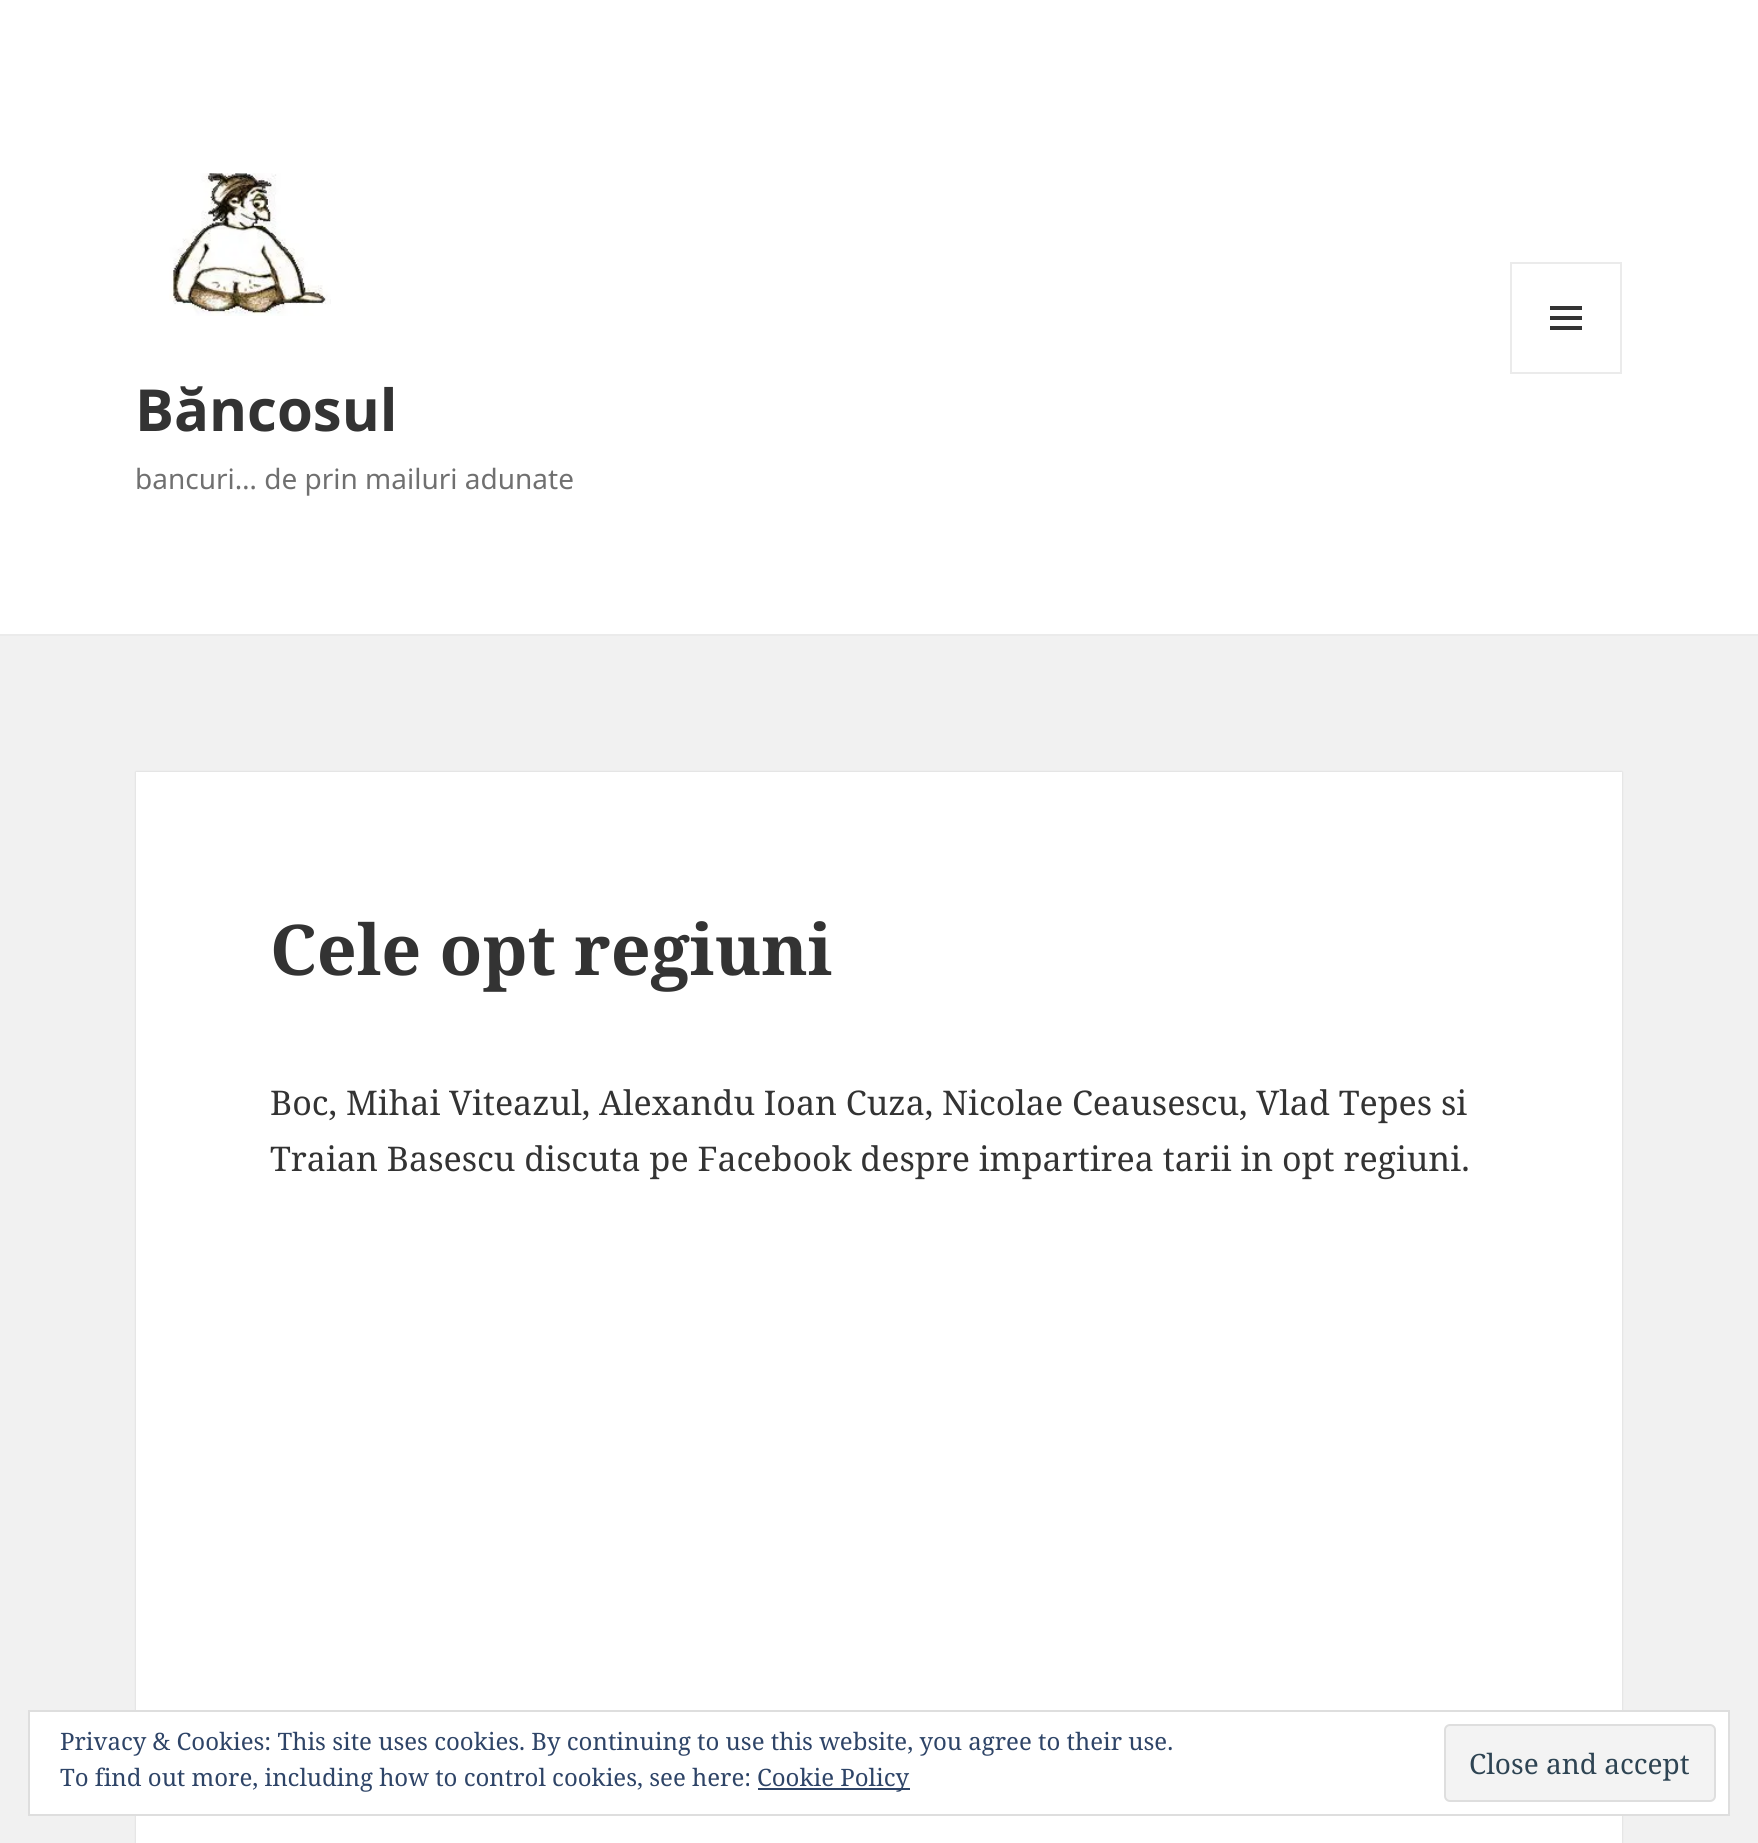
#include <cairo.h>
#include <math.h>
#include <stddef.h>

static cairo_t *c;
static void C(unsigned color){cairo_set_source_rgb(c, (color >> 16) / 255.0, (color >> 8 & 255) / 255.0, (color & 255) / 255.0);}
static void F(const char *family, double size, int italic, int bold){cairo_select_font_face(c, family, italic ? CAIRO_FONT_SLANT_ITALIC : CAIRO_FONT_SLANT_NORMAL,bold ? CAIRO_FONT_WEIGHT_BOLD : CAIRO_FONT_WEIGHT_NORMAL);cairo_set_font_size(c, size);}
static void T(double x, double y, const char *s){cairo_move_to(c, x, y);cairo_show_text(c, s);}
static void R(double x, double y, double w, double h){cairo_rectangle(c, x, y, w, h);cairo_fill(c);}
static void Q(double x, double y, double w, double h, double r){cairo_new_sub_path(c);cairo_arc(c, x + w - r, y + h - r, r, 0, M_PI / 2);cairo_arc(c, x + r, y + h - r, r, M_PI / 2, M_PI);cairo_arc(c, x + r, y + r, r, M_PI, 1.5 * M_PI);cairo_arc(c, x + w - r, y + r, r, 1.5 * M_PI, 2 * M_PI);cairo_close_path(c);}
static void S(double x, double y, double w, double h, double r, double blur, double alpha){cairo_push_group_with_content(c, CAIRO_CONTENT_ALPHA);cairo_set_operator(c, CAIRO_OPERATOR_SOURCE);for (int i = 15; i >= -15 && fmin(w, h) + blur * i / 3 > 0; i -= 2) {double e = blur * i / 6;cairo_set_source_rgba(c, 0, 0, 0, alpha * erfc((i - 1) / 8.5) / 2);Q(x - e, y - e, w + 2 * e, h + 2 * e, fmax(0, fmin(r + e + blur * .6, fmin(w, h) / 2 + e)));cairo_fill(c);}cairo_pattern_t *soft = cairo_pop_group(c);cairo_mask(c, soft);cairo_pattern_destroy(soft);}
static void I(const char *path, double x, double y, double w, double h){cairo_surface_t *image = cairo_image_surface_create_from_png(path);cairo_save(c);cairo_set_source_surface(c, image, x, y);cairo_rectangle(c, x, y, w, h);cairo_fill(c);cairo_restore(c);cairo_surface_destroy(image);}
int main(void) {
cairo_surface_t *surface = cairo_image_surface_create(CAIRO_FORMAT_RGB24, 1758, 1843);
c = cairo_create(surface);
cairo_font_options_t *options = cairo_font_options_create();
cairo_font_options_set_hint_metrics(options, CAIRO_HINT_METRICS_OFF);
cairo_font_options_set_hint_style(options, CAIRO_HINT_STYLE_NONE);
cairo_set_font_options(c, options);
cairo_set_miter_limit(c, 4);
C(0xf1f1f1);
cairo_paint(c);
C(0xffffff);
R(0,0,1758,634);
C(0xebebeb);
R(0,634,1758,2);
I("1.png",169,173,162,143);
cairo_rectangle(c,1511,263,110,110);
cairo_stroke(c);
I("2.png",1550,306,32,24);
F("Noto Sans",58,0,1);
C(0x333333);
T(135,431,"Băncosul");
F("Noto Sans",28,0,0);
C(0x707070);
T(135,489,"bancuri… de prin mailuri adunate");
C(0x000000);
S(136,772,1486,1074,0,1,.15);
C(0xffffff);
R(136,772,1486,1071);
F("Noto Serif",70,0,1);
C(0x333333);
T(270,975,"Cele opt regiuni");
F("Noto Serif",34,0,0);
T(270,1115,"Boc, Mihai Viteazul, Alexandu Ioan Cuza, Nicolae Ceausescu, Vlad Tepes si");
T(270,1171,"Traian Basescu discuta pe Facebook despre impartirea tarii in opt regiuni.");
C(0xffffff);
cairo_rectangle(c,29,1711,1700,104);
cairo_fill_preserve(c);
C(0xdedede);
cairo_stroke(c);
F("Noto Serif",24,0,0);
C(0x2e4467);
T(60,1750,"Privacy & Cookies: This site uses cookies. By continuing to use this website, you agree to their use.");
T(60,1786,"To find out more, including how to control cookies, see here:");
R(758,1788,152,2);
T(757,1786,"Cookie Policy");
C(0xf3f3f3);
Q(1445,1725,270,76,5);
cairo_fill_preserve(c);
C(0xdedede);
cairo_stroke(c);
F("Noto Serif",28,0,0);
C(0x2e4453);
T(1469,1774,"Close and accept");
cairo_surface_write_to_png(surface, "o.png");
cairo_font_options_destroy(options);
cairo_destroy(c);
cairo_surface_destroy(surface);
return 0;
}
